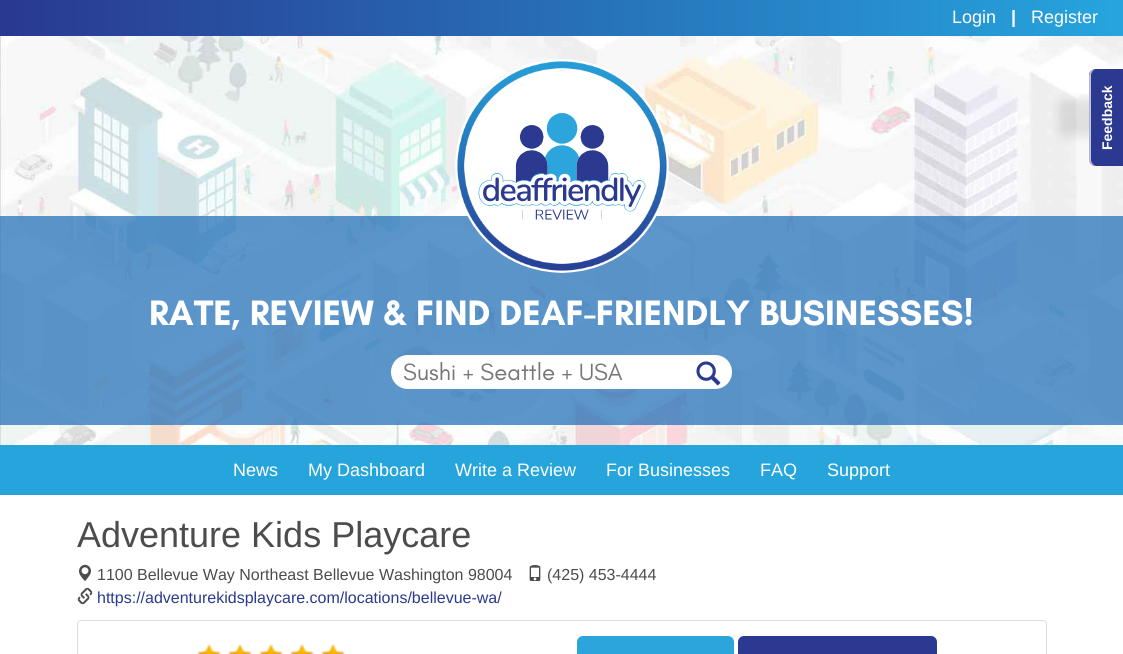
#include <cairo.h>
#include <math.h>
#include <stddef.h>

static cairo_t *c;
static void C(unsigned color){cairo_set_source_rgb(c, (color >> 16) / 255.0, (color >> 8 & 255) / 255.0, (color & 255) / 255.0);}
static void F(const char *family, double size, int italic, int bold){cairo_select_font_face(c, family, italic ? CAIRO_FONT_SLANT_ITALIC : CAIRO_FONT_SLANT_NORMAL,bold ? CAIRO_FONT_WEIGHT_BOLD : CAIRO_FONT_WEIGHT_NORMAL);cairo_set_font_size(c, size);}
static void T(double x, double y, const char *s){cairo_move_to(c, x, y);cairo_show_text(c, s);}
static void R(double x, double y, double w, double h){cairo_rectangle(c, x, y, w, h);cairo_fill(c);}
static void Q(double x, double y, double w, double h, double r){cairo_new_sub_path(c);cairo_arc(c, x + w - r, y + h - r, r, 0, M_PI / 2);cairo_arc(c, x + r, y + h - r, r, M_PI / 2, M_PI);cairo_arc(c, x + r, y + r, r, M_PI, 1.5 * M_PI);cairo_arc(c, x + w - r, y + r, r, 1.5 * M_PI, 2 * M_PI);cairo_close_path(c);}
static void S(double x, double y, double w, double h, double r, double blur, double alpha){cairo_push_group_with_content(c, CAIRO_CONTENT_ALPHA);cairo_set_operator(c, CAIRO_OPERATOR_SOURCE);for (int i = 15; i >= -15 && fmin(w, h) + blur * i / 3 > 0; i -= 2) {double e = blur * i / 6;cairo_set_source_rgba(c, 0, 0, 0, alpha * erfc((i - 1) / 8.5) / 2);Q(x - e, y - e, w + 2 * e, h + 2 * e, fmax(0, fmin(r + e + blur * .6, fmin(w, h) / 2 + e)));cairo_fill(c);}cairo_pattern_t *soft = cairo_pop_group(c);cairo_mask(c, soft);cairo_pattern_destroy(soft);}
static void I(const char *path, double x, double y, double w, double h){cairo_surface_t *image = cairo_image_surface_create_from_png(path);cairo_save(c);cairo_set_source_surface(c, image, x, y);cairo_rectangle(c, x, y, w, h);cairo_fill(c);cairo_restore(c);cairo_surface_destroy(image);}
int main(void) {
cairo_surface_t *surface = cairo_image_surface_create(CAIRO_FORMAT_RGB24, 1123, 654);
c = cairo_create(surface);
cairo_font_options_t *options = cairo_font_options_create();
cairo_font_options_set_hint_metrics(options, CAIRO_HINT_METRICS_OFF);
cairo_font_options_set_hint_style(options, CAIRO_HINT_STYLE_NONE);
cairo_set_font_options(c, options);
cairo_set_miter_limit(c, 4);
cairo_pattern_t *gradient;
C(0xffffff);
cairo_paint(c);
I("1.png",0,36,1123,409);
gradient = cairo_pattern_create_linear(0,18,1123,18);
cairo_pattern_add_color_stop_rgba(gradient,0,0.161,0.22,0.569,1);
cairo_pattern_add_color_stop_rgba(gradient,1,0.149,0.647,0.867,1);
cairo_set_source(c,gradient);
cairo_pattern_destroy(gradient);
R(0,0,1123,36);
F("Liberation Sans",18,0,0);
C(0xffffff);
T(952,23,"Login");
F("Liberation Sans",18,0,1);
T(1011,23,"|");
F("Liberation Sans",18,0,0);
T(1031,23,"Register");
cairo_set_source_rgba(c,0.153,0.451,0.729,0.75);
R(0,216,1123,209);
I("2.png",455,59,214,214);
F("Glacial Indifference",36,0,1);
C(0xffffff);
T(149,325,"RATE, REVIEW & FIND DEAF-FRIENDLY BUSINESSES!");
cairo_new_path(c);
cairo_move_to(c,408,355);
cairo_line_to(c,684,355);
cairo_line_to(c,684,389);
cairo_line_to(c,408,389);
cairo_curve_to(c,398.5,389,391,381.5,391,372);
cairo_curve_to(c,391,362.5,398.5,355,408,355);
cairo_close_path(c);
cairo_fill(c);
F("Glacial Indifference",24,0,0);
C(0x777777);
T(403,380,"Sushi + Seattle + USA");
C(0xffffff);
cairo_new_path(c);
cairo_move_to(c,684,355);
cairo_line_to(c,715,355);
cairo_curve_to(c,724.5,355,732,362.5,732,372);
cairo_curve_to(c,732,381.5,724.5,389,715,389);
cairo_line_to(c,684,389);
cairo_close_path(c);
cairo_fill(c);
I("3.png",696,361,25,25);
C(0x000000);
S(1059,100,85,36,6,5,.1);
C(0x2b3990);
cairo_new_path(c);
cairo_move_to(c,1089,160);
cairo_line_to(c,1089,75);
cairo_curve_to(c,1089,72,1092,69,1095,69);
cairo_line_to(c,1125,69);
cairo_line_to(c,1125,166);
cairo_line_to(c,1095,166);
cairo_curve_to(c,1092,166,1089,163,1089,160);
cairo_close_path(c);
cairo_fill(c);
cairo_set_source_rgba(c,1,1,1,0.7);
cairo_new_path(c);
cairo_move_to(c,1091,160);
cairo_curve_to(c,1091,163,1094,166,1097,166);
cairo_curve_to(c,1085,166,1089,155,1089,146);
cairo_line_to(c,1089,90);
cairo_curve_to(c,1089,86,1086,69,1095,69);
cairo_curve_to(c,1093,70,1091,73,1091,75);
cairo_close_path(c);
cairo_fill(c);
cairo_set_source_rgba(c,0,0,0,0.08);
cairo_new_path(c);
cairo_move_to(c,1090,160);
cairo_curve_to(c,1090,163,1093,166,1096,166);
cairo_line_to(c,1095,166);
cairo_curve_to(c,1092,166,1089,163,1089,160);
cairo_line_to(c,1089,75);
cairo_curve_to(c,1089,73,1091,70,1094,70);
cairo_curve_to(c,1092,71,1090,73,1090,75);
cairo_close_path(c);
cairo_fill(c);
F("Liberation Sans",14,0,1);
C(0xffffff);
cairo_save(c);
cairo_translate(c,1112,150);
cairo_rotate(c,-90 * M_PI / 180);
T(0,0,"Feedback");
cairo_restore(c);
C(0x26a5dd);
R(0,445,1123,50);
F("Liberation Sans",18,0,0);
C(0xffffff);
T(233,476,"News");
T(308,476,"My Dashboard");
T(455,476,"Write a Review");
T(606,476,"For Businesses");
T(760,476,"FAQ");
T(827,476,"Support");
F("Liberation Sans",36,0,0);
C(0x4c4c4c);
T(77,547,"Adventure Kids Playcare");
I("4.png",79,564,12,18);
F("Liberation Sans",16,0,0);
T(97,580,"1100 Bellevue Way Northeast Bellevue Washington 98004");
I("5.png",529,565,12,16);
T(547,580,"(425) 453-4444");
I("6.png",77,587,16,18);
C(0x2b3990);
T(97,603,"https://adventurekidsplaycare.com/locations/bellevue-wa/");
Q(77.5,620.5,969,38,3.5);
C(0xdddddd);
cairo_set_line_width(c,1);
cairo_stroke(c);
I("7.png",197,644,24,10);
I("8.png",228,644,24,10);
I("9.png",259,644,24,10);
I("8.png",290,644,24,10);
I("7.png",321,644,24,10);
C(0x2ba5dc);
Q(577,636,157,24,6);
cairo_fill(c);
C(0x2b3990);
Q(738,636,199,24,6);
cairo_fill(c);
cairo_surface_write_to_png(surface, "o.png");
cairo_font_options_destroy(options);
cairo_destroy(c);
cairo_surface_destroy(surface);
return 0;
}
